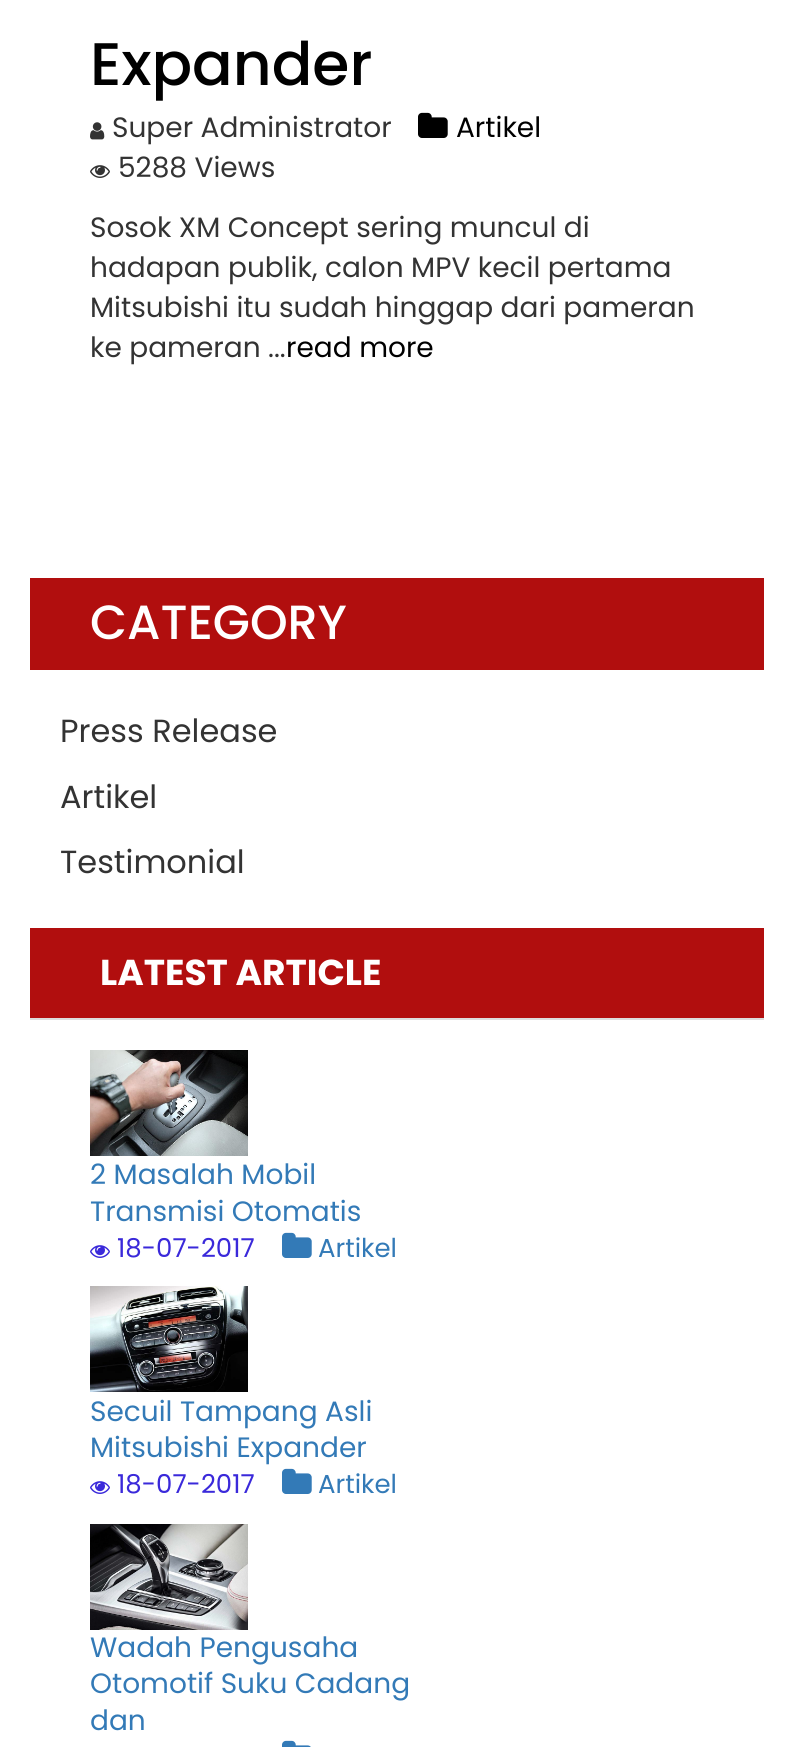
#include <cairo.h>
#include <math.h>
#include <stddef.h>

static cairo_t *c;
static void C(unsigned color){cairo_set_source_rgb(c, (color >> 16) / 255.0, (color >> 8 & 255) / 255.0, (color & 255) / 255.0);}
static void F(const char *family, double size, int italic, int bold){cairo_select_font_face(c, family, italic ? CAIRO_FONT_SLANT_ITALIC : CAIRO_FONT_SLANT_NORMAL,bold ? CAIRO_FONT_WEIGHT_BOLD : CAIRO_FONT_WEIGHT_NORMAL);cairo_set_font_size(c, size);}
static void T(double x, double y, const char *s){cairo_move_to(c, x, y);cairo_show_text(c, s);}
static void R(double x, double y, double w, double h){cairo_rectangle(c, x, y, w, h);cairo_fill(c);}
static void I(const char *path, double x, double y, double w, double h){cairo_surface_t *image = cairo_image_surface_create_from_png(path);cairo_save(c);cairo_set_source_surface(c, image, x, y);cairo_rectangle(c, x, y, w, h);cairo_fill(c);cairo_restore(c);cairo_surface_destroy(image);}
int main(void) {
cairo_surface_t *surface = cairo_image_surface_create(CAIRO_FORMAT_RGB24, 794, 1747);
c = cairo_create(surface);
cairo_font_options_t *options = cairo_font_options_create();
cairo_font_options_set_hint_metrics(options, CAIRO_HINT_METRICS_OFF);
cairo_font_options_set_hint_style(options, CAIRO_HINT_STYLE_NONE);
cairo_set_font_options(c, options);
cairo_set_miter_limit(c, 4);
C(0xffffff);
cairo_paint(c);
F("Poppins Medium",60,0,0);
C(0x000000);
T(90,85,"Expander");
I("1.png",90,122,15,18);
F("Poppins",28,0,0);
C(0x333333);
T(112,137,"Super Administrator");
I("2.png",418,112,30,26);
C(0x000000);
T(456,137,"Artikel");
I("3.png",90,165,20,13);
C(0x333333);
T(118,177,"5288 Views");
T(90,237,"Sosok XM Concept sering muncul di");
T(90,277,"hadapan publik, calon MPV kecil pertama");
T(90,317,"Mitsubishi itu sudah hinggap dari pameran");
T(90,357,"ke pameran ...");
C(0x000000);
T(286,357,"read more");
C(0xb10e0e);
R(30,578,734,92);
F("Poppins Medium",48,0,0);
C(0xffffff);
T(90,639,"CATEGORY");
F("Poppins",32,0,0);
C(0x333333);
T(60,742,"Press Release");
T(60,808,"Artikel");
T(60,873,"Testimonial");
C(0xb10e0e);
R(30,928,734,90);
C(0xdddddd);
R(30,1018,734,2);
F("Poppins",36,0,1);
C(0xffffff);
T(100,985,"LATEST ARTICLE");
I("4.png",90,1050,158,106);
F("Poppins",28,0,0);
C(0x337ab7);
T(90,1184,"2 Masalah Mobil");
T(90,1221,"Transmisi Otomatis");
I("5.png",90,1245,20,13);
F("Poppins",26,0,0);
C(0x3a29da);
T(117,1257,"18-07-2017");
I("6.png",282,1232,30,26);
C(0x337ab7);
T(318,1257,"Artikel");
I("7.png",90,1286,158,106);
F("Poppins",28,0,0);
T(90,1421,"Secuil Tampang Asli");
T(90,1457,"Mitsubishi Expander");
I("5.png",90,1481,20,13);
F("Poppins",26,0,0);
C(0x3a29da);
T(117,1493,"18-07-2017");
I("6.png",282,1468,30,26);
C(0x337ab7);
T(318,1493,"Artikel");
I("8.png",90,1524,158,106);
F("Poppins",28,0,0);
T(90,1657,"Wadah Pengusaha");
T(90,1693,"Otomotif Suku Cadang");
T(90,1730,"dan");
I("9.png",282,1740,29,7);
cairo_surface_write_to_png(surface, "o.png");
cairo_font_options_destroy(options);
cairo_destroy(c);
cairo_surface_destroy(surface);
return 0;
}
